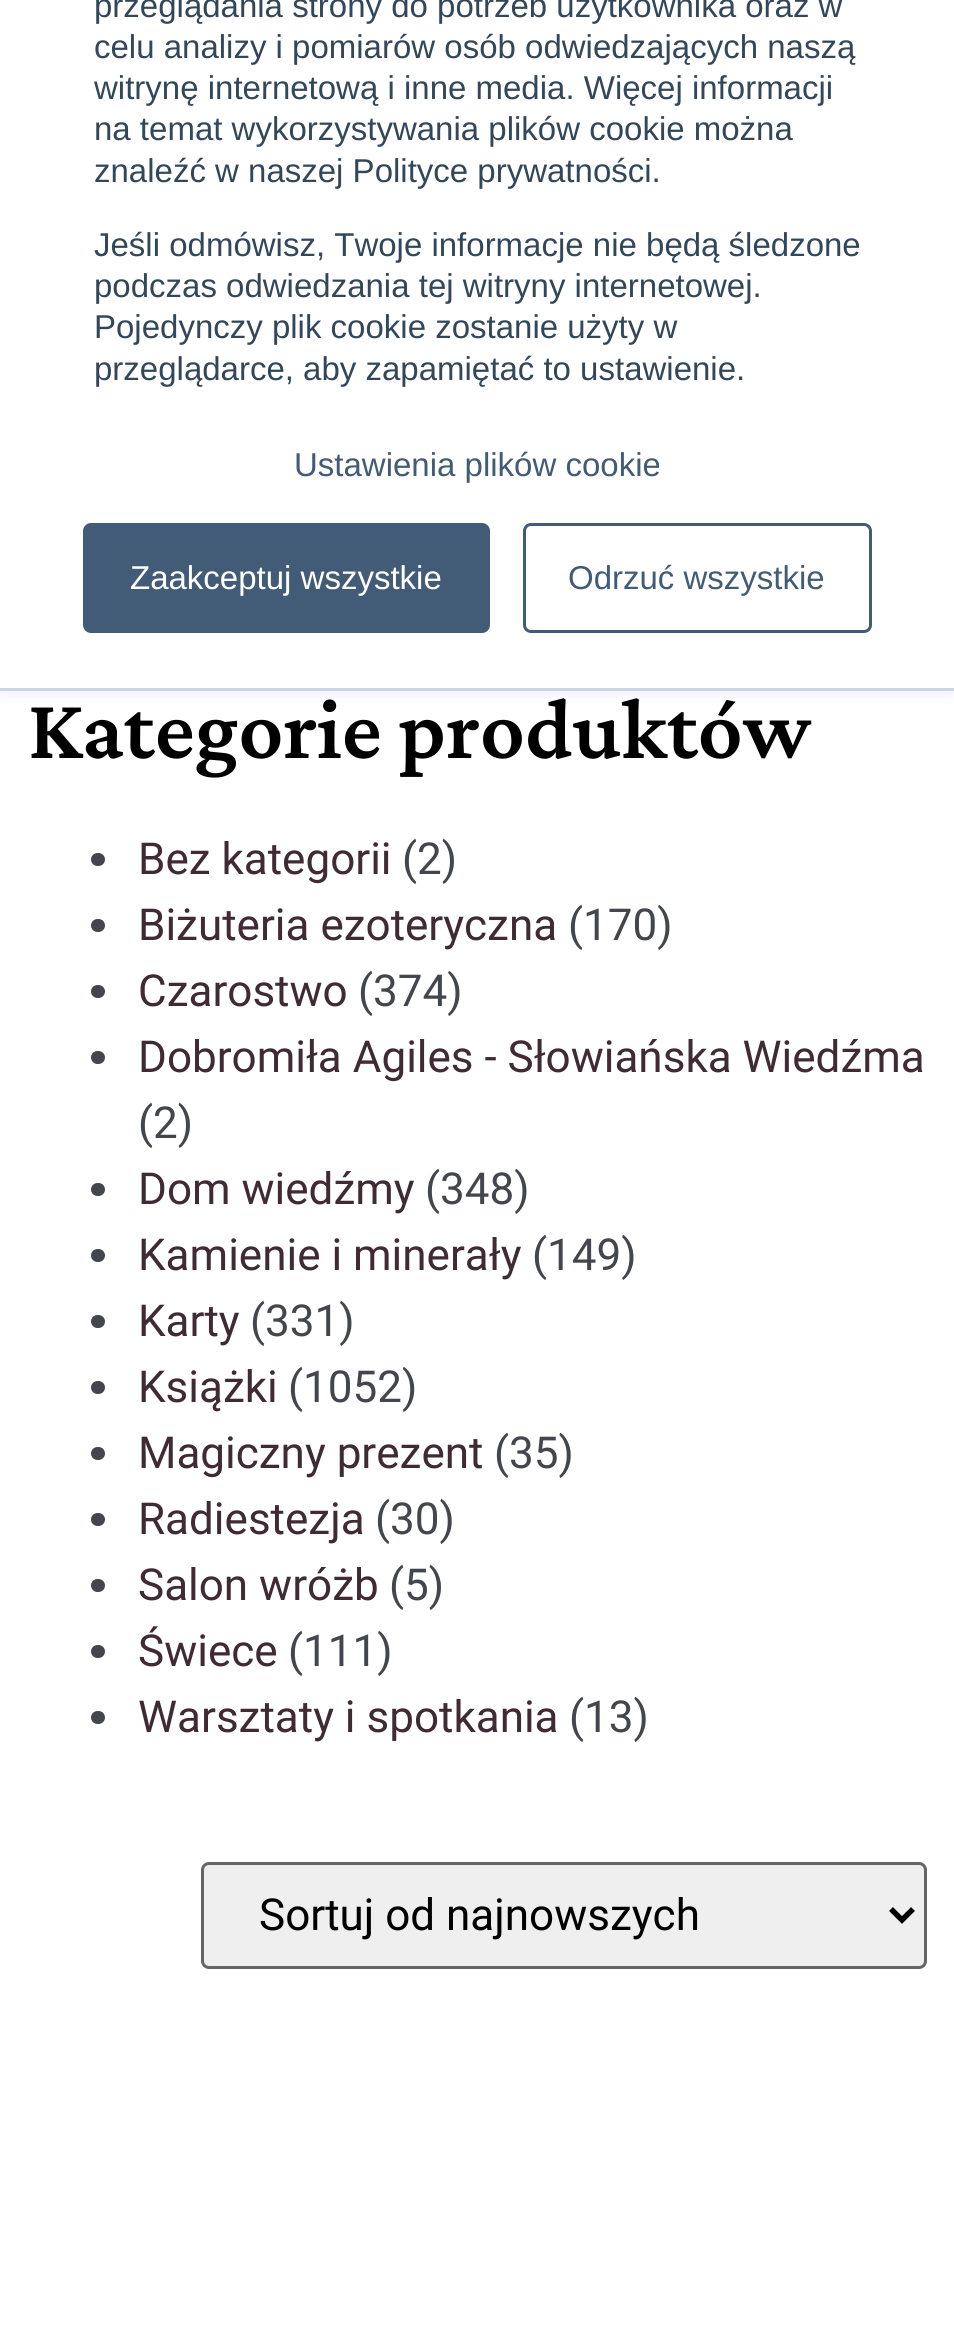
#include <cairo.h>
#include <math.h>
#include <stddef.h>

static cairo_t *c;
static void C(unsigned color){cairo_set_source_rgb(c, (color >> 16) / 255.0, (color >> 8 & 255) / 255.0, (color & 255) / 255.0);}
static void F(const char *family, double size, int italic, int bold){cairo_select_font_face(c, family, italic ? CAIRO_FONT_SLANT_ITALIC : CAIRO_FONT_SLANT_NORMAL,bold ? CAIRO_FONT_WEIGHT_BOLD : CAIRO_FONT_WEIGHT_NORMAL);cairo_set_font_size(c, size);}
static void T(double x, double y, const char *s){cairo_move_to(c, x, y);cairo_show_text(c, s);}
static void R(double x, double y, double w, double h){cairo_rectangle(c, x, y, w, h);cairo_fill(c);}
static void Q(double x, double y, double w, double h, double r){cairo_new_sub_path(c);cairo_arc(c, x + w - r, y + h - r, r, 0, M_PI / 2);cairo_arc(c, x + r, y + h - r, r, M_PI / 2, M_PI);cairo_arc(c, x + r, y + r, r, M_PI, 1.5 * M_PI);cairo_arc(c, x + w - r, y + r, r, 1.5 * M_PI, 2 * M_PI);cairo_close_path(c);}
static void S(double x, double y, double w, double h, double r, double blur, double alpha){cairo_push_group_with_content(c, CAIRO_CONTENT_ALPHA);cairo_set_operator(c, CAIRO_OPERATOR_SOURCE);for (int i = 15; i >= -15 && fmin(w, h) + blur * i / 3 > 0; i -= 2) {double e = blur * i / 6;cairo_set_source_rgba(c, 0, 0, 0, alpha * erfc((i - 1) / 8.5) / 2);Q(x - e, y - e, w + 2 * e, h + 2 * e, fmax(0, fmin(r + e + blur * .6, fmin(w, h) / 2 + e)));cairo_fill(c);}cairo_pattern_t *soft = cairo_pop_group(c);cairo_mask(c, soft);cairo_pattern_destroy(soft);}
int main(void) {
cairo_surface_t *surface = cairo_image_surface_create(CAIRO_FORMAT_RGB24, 954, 2350);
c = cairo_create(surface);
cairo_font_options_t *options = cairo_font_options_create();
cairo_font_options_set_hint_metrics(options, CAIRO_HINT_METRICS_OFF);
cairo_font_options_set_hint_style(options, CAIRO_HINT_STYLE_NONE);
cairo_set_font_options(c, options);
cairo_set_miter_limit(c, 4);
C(0xffffff);
cairo_paint(c);
C(0xeaf0f6);
S(0,-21,954,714,0,7,1);
C(0xffffff);
R(0,0,954,688);
C(0xcbd6e2);
R(0,688,954,3);
F("Liberation Sans",33,0,0);
C(0x33475b);
T(94,17,"przeglądania strony do potrzeb użytkownika oraz w");
T(94,58,"celu analizy i pomiarów osób odwiedzających naszą");
T(94,99,"witrynę internetową i inne media. Więcej informacji");
T(94,140,"na temat wykorzystywania plików cookie można");
T(94,182,"znaleźć w naszej Polityce prywatności.");
T(94,256,"Jeśli odmówisz, Twoje informacje nie będą śledzone");
T(94,297,"podczas odwiedzania tej witryny internetowej.");
T(94,338,"Pojedynczy plik cookie zostanie użyty w");
T(94,380,"przeglądarce, aby zapamiętać to ustawienie.");
C(0x425b76);
T(294,476,"Ustawienia plików cookie");
Q(84.5,524.5,404,107,6.5);
cairo_fill_preserve(c);
cairo_set_line_width(c,3);
cairo_stroke(c);
C(0xffffff);
T(130,589,"Zaakceptuj wszystkie");
Q(524.5,524.5,346,107,6.5);
C(0x425b76);
cairo_stroke(c);
T(568,589,"Odrzuć wszystkie");
F("Crimson Pro SemiBold",88,0,0);
C(0x000000);
T(28,758,"Kategorie produktów");
C(0x43474d);
Q(91,853,14,13,6.5);
cairo_fill(c);
F("Roboto",44,0,0);
C(0x402b35);
T(138,874,"Bez kategorii");
C(0x43474d);
T(402,874,"(2)");
Q(91,919,14,13,6.5);
cairo_fill(c);
C(0x402b35);
T(138,940,"Biżuteria ezoteryczna");
C(0x43474d);
T(568,940,"(170)");
Q(91,985,14,13,6.5);
cairo_fill(c);
C(0x402b35);
T(138,1006,"Czarostwo");
C(0x43474d);
T(358,1006,"(374)");
Q(91,1051,14,13,6.5);
cairo_fill(c);
C(0x402b35);
T(138,1072,"Dobromiła Agiles - Słowiańska Wiedźma");
C(0x43474d);
T(138,1138,"(2)");
Q(91,1183,14,13,6.5);
cairo_fill(c);
C(0x402b35);
T(138,1204,"Dom wiedźmy");
C(0x43474d);
T(425,1204,"(348)");
Q(91,1249,14,13,6.5);
cairo_fill(c);
C(0x402b35);
T(138,1270,"Kamienie i minerały");
C(0x43474d);
T(532,1270,"(149)");
Q(91,1315,14,13,6.5);
cairo_fill(c);
C(0x402b35);
T(138,1336,"Karty");
C(0x43474d);
T(250,1336,"(331)");
Q(91,1381,14,13,6.5);
cairo_fill(c);
C(0x402b35);
T(138,1402,"Książki");
C(0x43474d);
T(288,1402,"(1052)");
Q(91,1447,14,13,6.5);
cairo_fill(c);
C(0x402b35);
T(138,1468,"Magiczny prezent");
C(0x43474d);
T(494,1468,"(35)");
Q(91,1513,14,13,6.5);
cairo_fill(c);
C(0x402b35);
T(138,1534,"Radiestezja");
C(0x43474d);
T(375,1534,"(30)");
Q(91,1579,14,13,6.5);
cairo_fill(c);
C(0x402b35);
T(138,1600,"Salon wróżb");
C(0x43474d);
T(389,1600,"(5)");
Q(91,1645,14,13,6.5);
cairo_fill(c);
C(0x402b35);
T(138,1666,"Świece");
C(0x43474d);
T(288,1666,"(111)");
Q(91,1711,14,13,6.5);
cairo_fill(c);
C(0x402b35);
T(138,1732,"Warsztaty i spotkania");
C(0x43474d);
T(569,1732,"(13)");
C(0xefefef);
Q(202.5,1863.5,723,104,6.5);
cairo_fill_preserve(c);
C(0x666666);
cairo_stroke(c);
cairo_new_path(c);
cairo_move_to(c,891,1909);
cairo_line_to(c,902,1920);
cairo_line_to(c,913,1909);
C(0x000000);
cairo_set_line_width(c,5.5);
cairo_stroke(c);
T(259,1930,"Sortuj od najnowszych");
cairo_surface_write_to_png(surface, "o.png");
cairo_font_options_destroy(options);
cairo_destroy(c);
cairo_surface_destroy(surface);
return 0;
}
